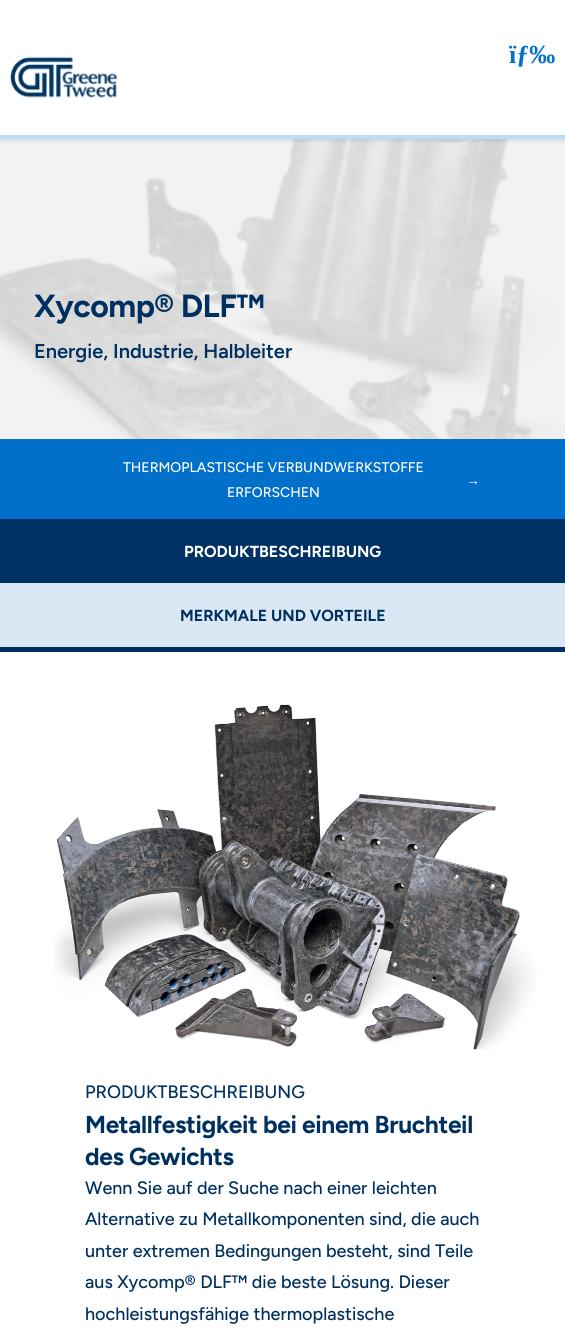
#include <cairo.h>
#include <math.h>
#include <stddef.h>

static cairo_t *c;
static void C(unsigned color){cairo_set_source_rgb(c, (color >> 16) / 255.0, (color >> 8 & 255) / 255.0, (color & 255) / 255.0);}
static void F(const char *family, double size, int italic, int bold){cairo_select_font_face(c, family, italic ? CAIRO_FONT_SLANT_ITALIC : CAIRO_FONT_SLANT_NORMAL,bold ? CAIRO_FONT_WEIGHT_BOLD : CAIRO_FONT_WEIGHT_NORMAL);cairo_set_font_size(c, size);}
static void T(double x, double y, const char *s){cairo_move_to(c, x, y);cairo_show_text(c, s);}
static void L(double x, double y, const char *s, double letter, double word){cairo_move_to(c, x, y);while (*s) {char ch[5] = {0};int n = 0;do ch[n++] = *s++; while ((*s & 0xC0) == 0x80);cairo_show_text(c, ch);cairo_rel_move_to(c, letter + word * (*ch == ' '), 0);}}
static void R(double x, double y, double w, double h){cairo_rectangle(c, x, y, w, h);cairo_fill(c);}
static void Q(double x, double y, double w, double h, double r){cairo_new_sub_path(c);cairo_arc(c, x + w - r, y + h - r, r, 0, M_PI / 2);cairo_arc(c, x + r, y + h - r, r, M_PI / 2, M_PI);cairo_arc(c, x + r, y + r, r, M_PI, 1.5 * M_PI);cairo_arc(c, x + w - r, y + r, r, 1.5 * M_PI, 2 * M_PI);cairo_close_path(c);}
static void S(double x, double y, double w, double h, double r, double blur, double alpha){cairo_push_group_with_content(c, CAIRO_CONTENT_ALPHA);cairo_set_operator(c, CAIRO_OPERATOR_SOURCE);for (int i = 15; i >= -15 && fmin(w, h) + blur * i / 3 > 0; i -= 2) {double e = blur * i / 6;cairo_set_source_rgba(c, 0, 0, 0, alpha * erfc((i - 1) / 8.5) / 2);Q(x - e, y - e, w + 2 * e, h + 2 * e, fmax(0, fmin(r + e + blur * .6, fmin(w, h) / 2 + e)));cairo_fill(c);}cairo_pattern_t *soft = cairo_pop_group(c);cairo_mask(c, soft);cairo_pattern_destroy(soft);}
static void I(const char *path, double x, double y, double w, double h){cairo_surface_t *image = cairo_image_surface_create_from_png(path);cairo_save(c);cairo_set_source_surface(c, image, x, y);cairo_rectangle(c, x, y, w, h);cairo_fill(c);cairo_restore(c);cairo_surface_destroy(image);}
int main(void) {
cairo_surface_t *surface = cairo_image_surface_create(CAIRO_FORMAT_RGB24, 565, 1327);
c = cairo_create(surface);
cairo_font_options_t *options = cairo_font_options_create();
cairo_font_options_set_hint_metrics(options, CAIRO_HINT_METRICS_OFF);
cairo_font_options_set_hint_style(options, CAIRO_HINT_STYLE_NONE);
cairo_set_font_options(c, options);
cairo_set_miter_limit(c, 4);
C(0xffffff);
cairo_paint(c);
I("2.png",0,139,565,300);
cairo_save(c);
cairo_rectangle(c,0,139,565,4);
cairo_clip(c);
C(0x000000);
S(0,22,565,119,0,2.5,.1);
cairo_restore(c);
C(0xb8deff);
R(0,135,565,4);
I("1.png",10,56,108,42);
F("Liberation Serif",26,0,1);
C(0x0170cb);
T(509,63,"ïƒ‰");
F("Figtree",32,0,1);
C(0x003060);
L(34,317,"Xycomp® DLF™",-.5,0);
F("Figtree SemiBold",20,0,0);
T(34,358,"Energie, Industrie, Halbleiter");
C(0x0170cb);
R(0,439,565,80);
F("Figtree Medium",14,0,0);
C(0xffffff);
T(123,472,"THERMOPLASTISCHE VERBUNDWERKSTOFFE");
F("Liberation Sans",14,0,1);
T(466,485,"→");
F("Figtree Medium",14,0,0);
T(227,497,"ERFORSCHEN");
C(0x003060);
R(0,647,565,5);
C(0x003265);
R(0,519,565,64);
F("Figtree",16,0,1);
C(0xffffff);
T(184,557,"PRODUKTBESCHREIBUNG");
C(0xd9e8f4);
R(0,583,565,64);
C(0x003060);
T(180,621,"MERKMALE UND VORTEILE");
I("3.png",53,704,484,346);
F("Figtree Medium",18,0,0);
T(85,1098,"PRODUKTBESCHREIBUNG");
F("Figtree",24.5,0,1);
L(85,1133,"Metallfestigkeit bei einem Bruchteil",-.35,0);
L(85,1165,"des Gewichts",-.35,0);
F("Figtree Medium",18,0,0);
T(85,1194,"Wenn Sie auf der Suche nach einer leichten");
T(85,1225,"Alternative zu Metallkomponenten sind, die auch");
T(85,1257,"unter extremen Bedingungen besteht, sind Teile");
T(85,1288,"aus Xycomp® DLF™ die beste Lösung. Dieser");
T(85,1320,"hochleistungsfähige thermoplastische");
cairo_surface_write_to_png(surface, "o.png");
cairo_font_options_destroy(options);
cairo_destroy(c);
cairo_surface_destroy(surface);
return 0;
}
